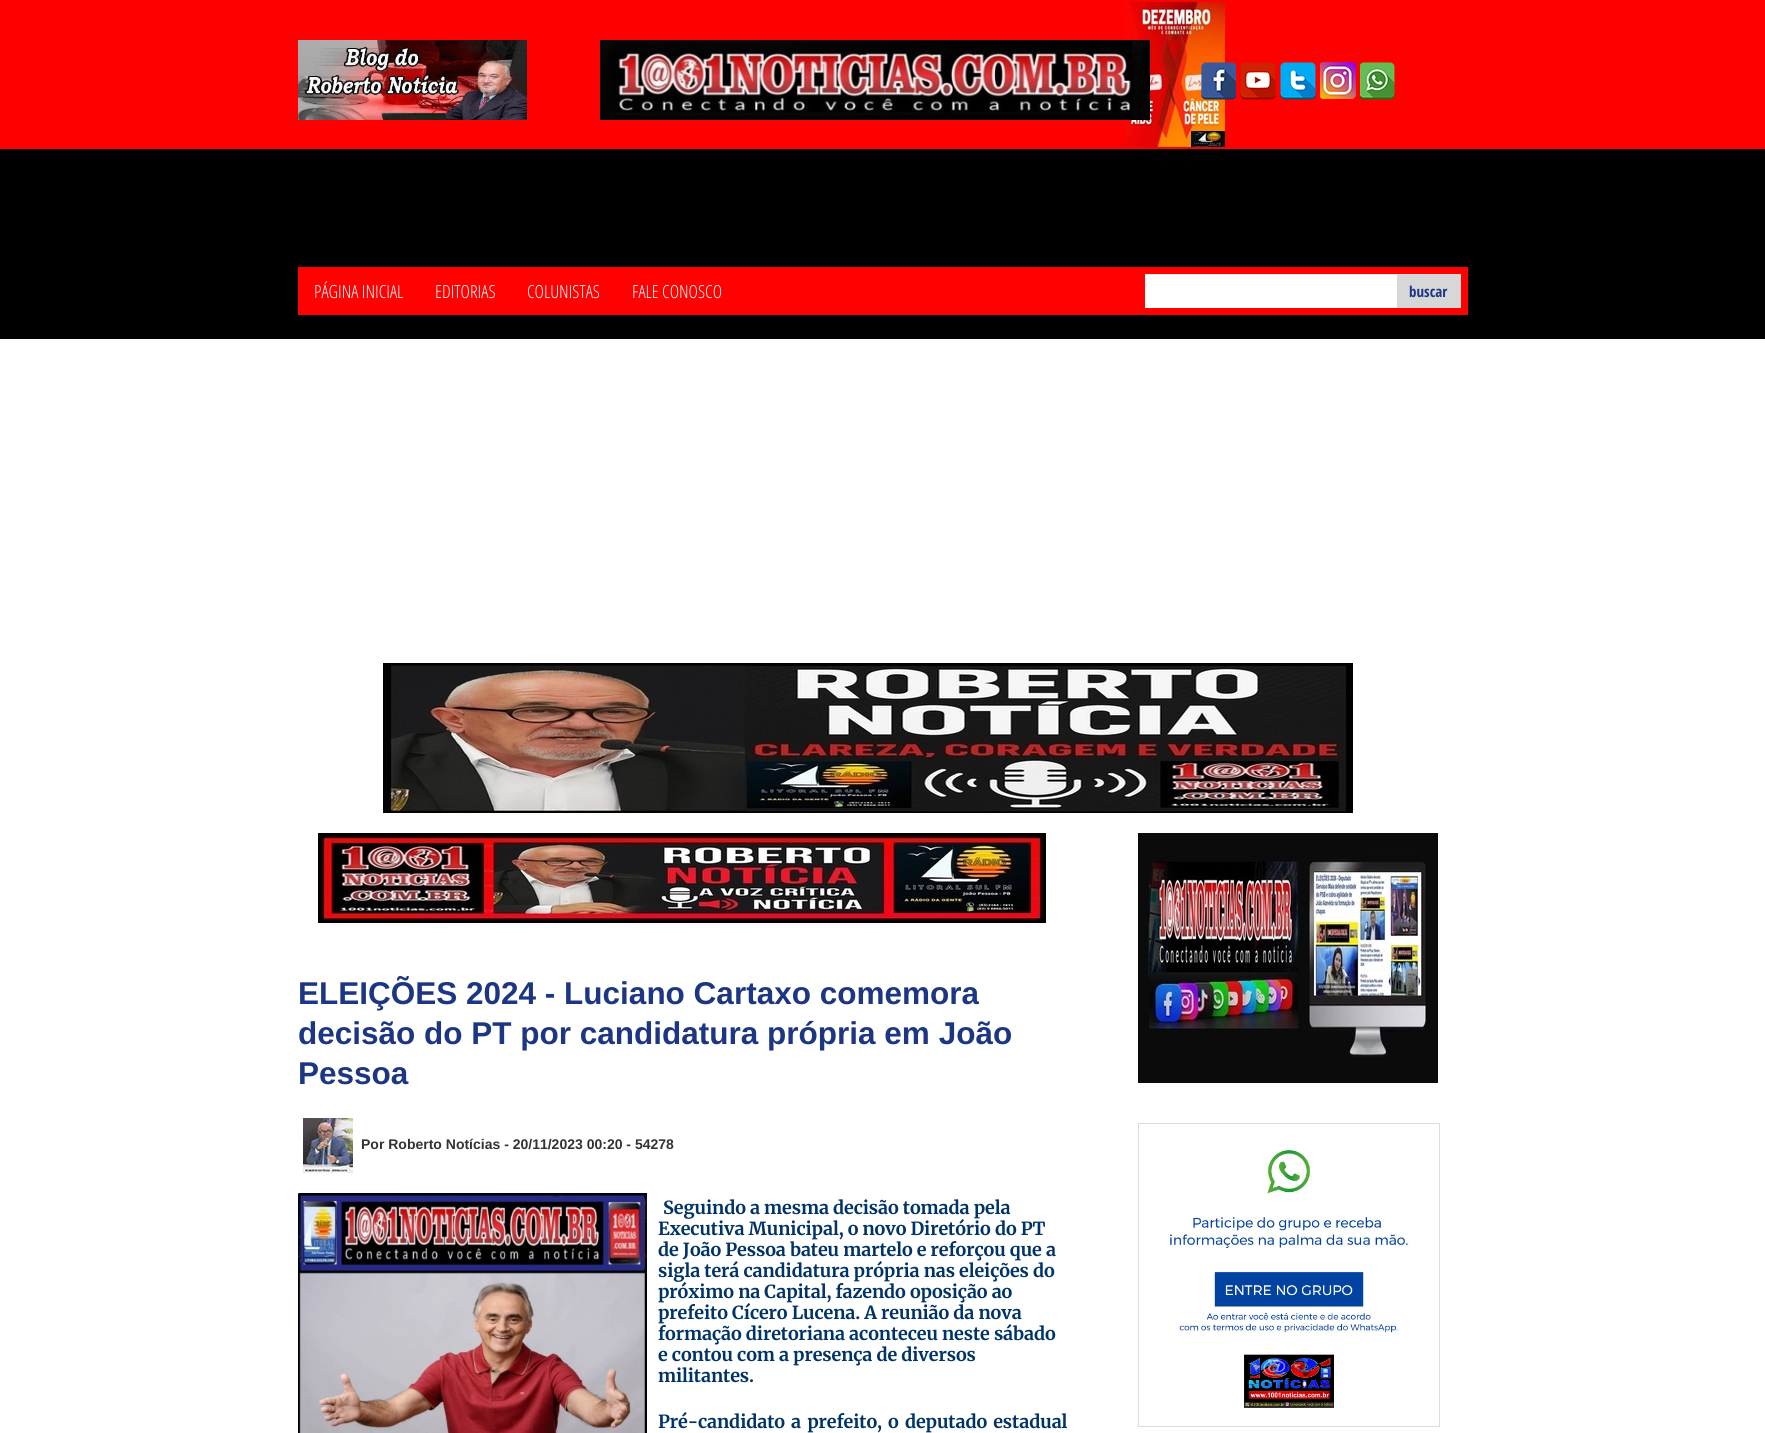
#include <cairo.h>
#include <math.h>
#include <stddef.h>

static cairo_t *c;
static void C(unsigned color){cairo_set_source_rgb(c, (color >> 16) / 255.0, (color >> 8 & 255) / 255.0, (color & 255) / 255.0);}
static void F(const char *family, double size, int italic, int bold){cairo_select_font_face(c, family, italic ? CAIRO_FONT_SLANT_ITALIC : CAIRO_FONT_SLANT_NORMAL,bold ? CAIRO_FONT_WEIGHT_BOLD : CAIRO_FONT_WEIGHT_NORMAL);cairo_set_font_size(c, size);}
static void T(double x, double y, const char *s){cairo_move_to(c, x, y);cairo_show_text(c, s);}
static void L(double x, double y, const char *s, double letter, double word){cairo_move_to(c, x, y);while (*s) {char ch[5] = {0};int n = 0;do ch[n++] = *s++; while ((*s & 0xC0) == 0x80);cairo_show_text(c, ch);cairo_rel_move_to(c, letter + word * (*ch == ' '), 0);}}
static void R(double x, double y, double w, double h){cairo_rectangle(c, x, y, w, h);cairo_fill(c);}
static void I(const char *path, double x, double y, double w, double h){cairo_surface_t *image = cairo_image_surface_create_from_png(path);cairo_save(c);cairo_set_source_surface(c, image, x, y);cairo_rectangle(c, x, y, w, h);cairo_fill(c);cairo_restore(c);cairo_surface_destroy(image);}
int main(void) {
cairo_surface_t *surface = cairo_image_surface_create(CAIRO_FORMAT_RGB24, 1765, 1433);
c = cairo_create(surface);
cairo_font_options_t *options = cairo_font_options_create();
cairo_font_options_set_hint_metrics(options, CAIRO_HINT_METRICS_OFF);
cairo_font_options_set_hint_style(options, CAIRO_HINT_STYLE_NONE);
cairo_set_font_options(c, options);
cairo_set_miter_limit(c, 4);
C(0xffffff);
cairo_paint(c);
I("1.png",0,0,1765,339);
I("2.png",298,40,229,80);
I("3.png",600,40,550,80);
I("4.png",1201,62,35,38);
I("5.png",1240,62,36,38);
I("6.png",1280,62,36,38);
I("7.png",1320,62,36,37);
I("8.png",1360,62,35,38);
C(0xfe0100);
R(298,267,1170,48);
F("Open Sans Condensed Light",18,0,0);
C(0xffffff);
T(314,298,"PÁGINA INICIAL");
T(435,298,"EDITORIAS");
T(527,298,"COLUNISTAS");
T(632,298,"FALE CONOSCO");
R(1145,275,252,33);
C(0xececec);
R(1145,274,252,1);
C(0xd7d7d7);
R(1397,274,64,34);
F("Open Sans Condensed",15,0,1);
C(0x1d3683);
T(1409,297,"buscar");
I("9.png",383,663,970,150);
I("10.png",318,833,728,90);
F("Liberation Sans",31.5,0,1);
T(298,1004,"ELEIÇÕES 2024 - Luciano Cartaxo comemora");
T(298,1044,"decisão do PT por candidatura própria em João");
T(298,1084,"Pessoa");
I("11.png",303,1118,50,55);
F("Liberation Sans",14,0,1);
C(0x333333);
T(361,1149,"Por Roberto Notícias - 20/11/2023 00:20 - 54278");
I("12.png",298,1193,349,240);
F("Merriweather",18,0,1);
C(0x003366);
L(663,1214,"Seguindo a mesma decisão tomada pela",-.1,0);
L(658,1235,"Executiva Municipal, o novo Diretório do PT",-.1,0);
L(658,1256,"de João Pessoa bateu martelo e reforçou que a",-.1,0);
L(658,1277,"sigla terá candidatura própria nas eleições do",-.1,0);
L(658,1298,"próximo na Capital, fazendo oposição ao",-.1,0);
L(658,1319,"prefeito Cícero Lucena. A reunião da nova",-.1,0);
L(658,1340,"formação diretoriana aconteceu neste sábado",-.1,0);
L(658,1361,"e contou com a presença de diversos",-.1,0);
L(658,1382,"militantes.",-.1,0);
L(658,1428,"Pré-candidato a prefeito, o deputado estadual",-.1,2);
I("13.png",1138,833,300,250);
cairo_rectangle(c,1138.5,1123.5,301,303);
C(0xdddddd);
cairo_set_line_width(c,1);
cairo_stroke(c);
I("14.png",1170,1148,240,261);
cairo_surface_write_to_png(surface, "o.png");
cairo_font_options_destroy(options);
cairo_destroy(c);
cairo_surface_destroy(surface);
return 0;
}
